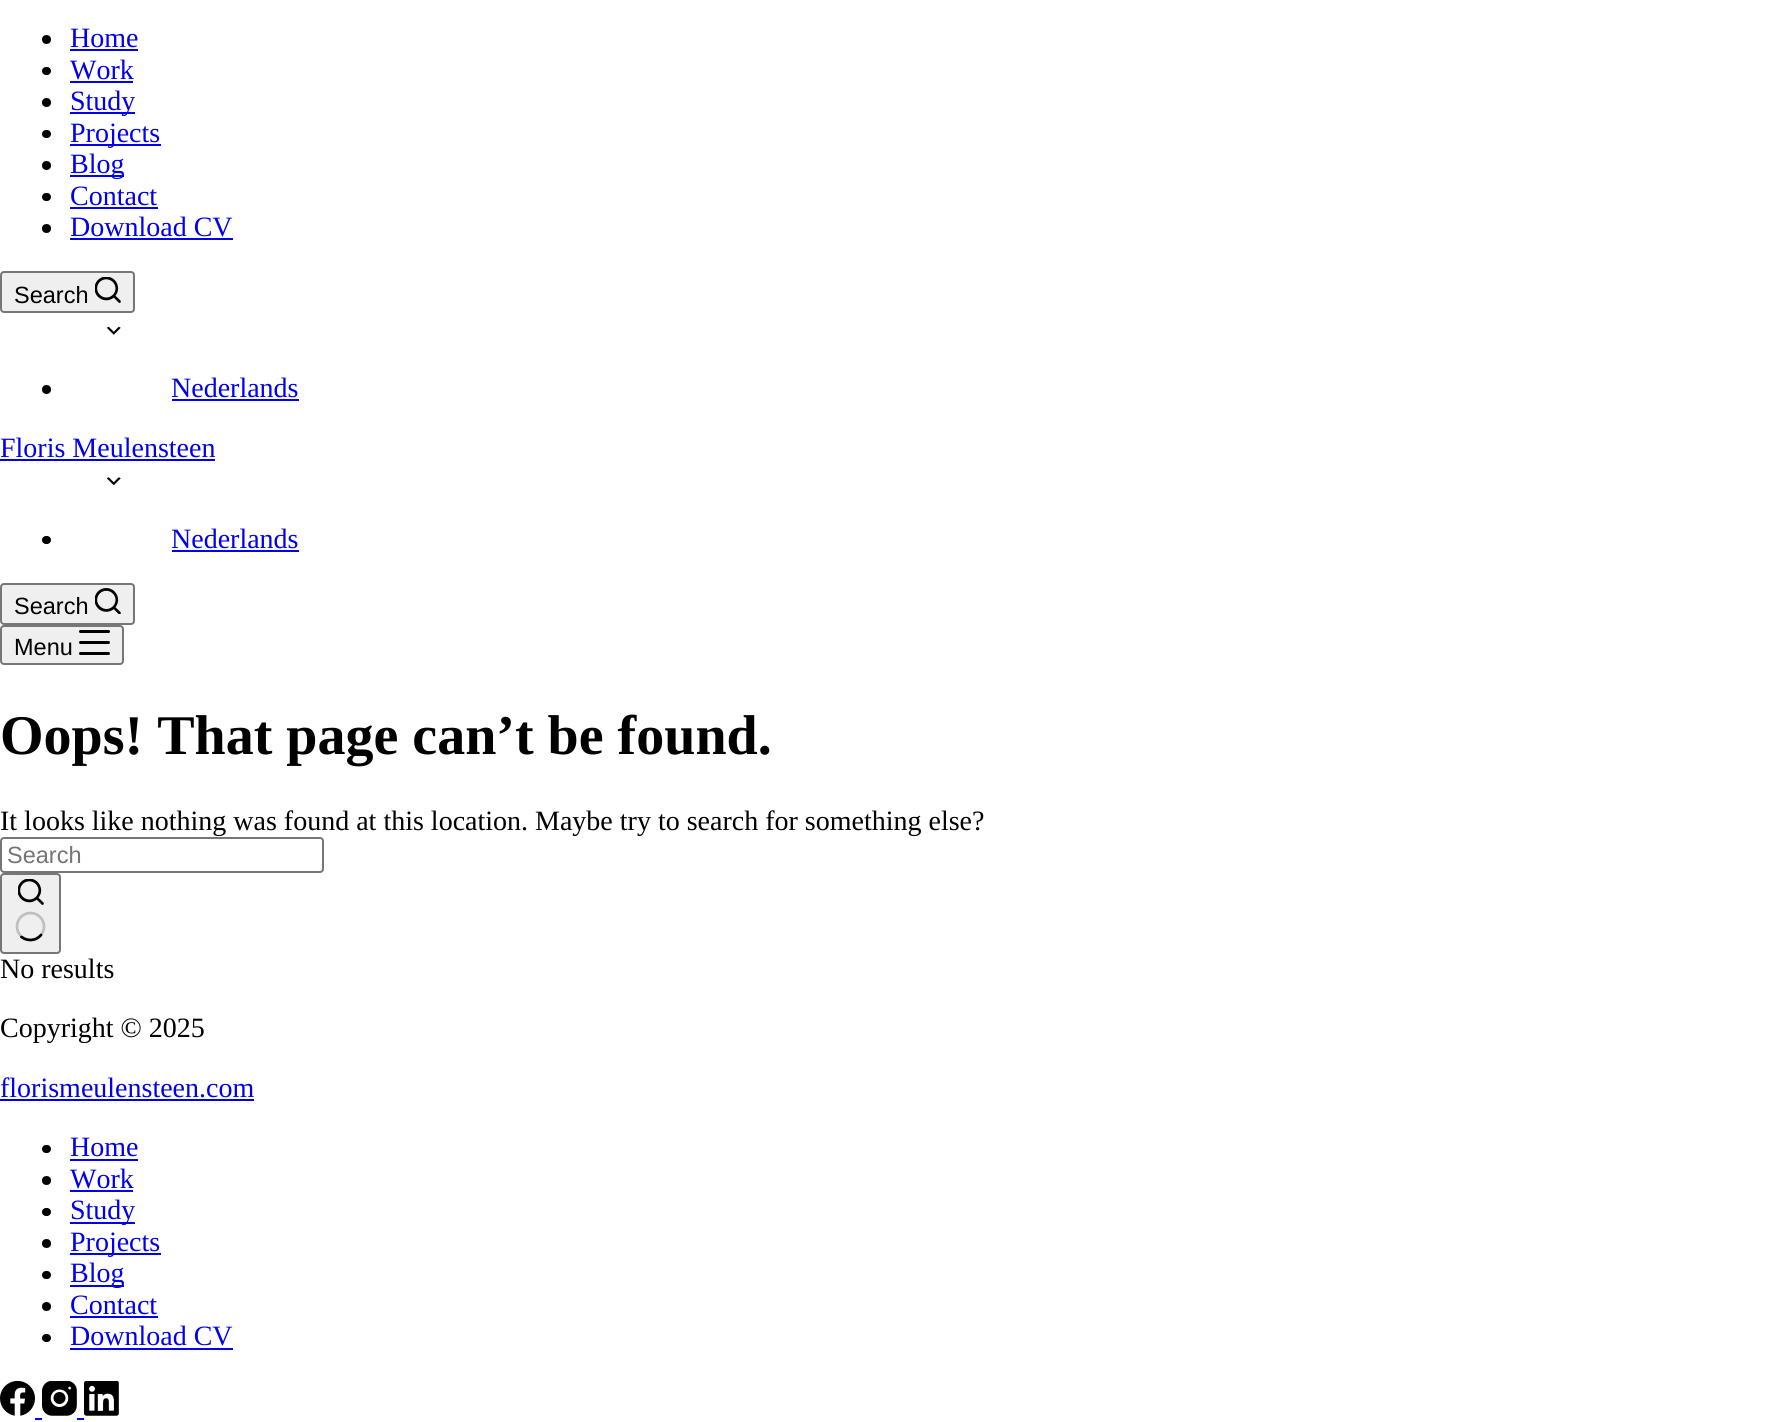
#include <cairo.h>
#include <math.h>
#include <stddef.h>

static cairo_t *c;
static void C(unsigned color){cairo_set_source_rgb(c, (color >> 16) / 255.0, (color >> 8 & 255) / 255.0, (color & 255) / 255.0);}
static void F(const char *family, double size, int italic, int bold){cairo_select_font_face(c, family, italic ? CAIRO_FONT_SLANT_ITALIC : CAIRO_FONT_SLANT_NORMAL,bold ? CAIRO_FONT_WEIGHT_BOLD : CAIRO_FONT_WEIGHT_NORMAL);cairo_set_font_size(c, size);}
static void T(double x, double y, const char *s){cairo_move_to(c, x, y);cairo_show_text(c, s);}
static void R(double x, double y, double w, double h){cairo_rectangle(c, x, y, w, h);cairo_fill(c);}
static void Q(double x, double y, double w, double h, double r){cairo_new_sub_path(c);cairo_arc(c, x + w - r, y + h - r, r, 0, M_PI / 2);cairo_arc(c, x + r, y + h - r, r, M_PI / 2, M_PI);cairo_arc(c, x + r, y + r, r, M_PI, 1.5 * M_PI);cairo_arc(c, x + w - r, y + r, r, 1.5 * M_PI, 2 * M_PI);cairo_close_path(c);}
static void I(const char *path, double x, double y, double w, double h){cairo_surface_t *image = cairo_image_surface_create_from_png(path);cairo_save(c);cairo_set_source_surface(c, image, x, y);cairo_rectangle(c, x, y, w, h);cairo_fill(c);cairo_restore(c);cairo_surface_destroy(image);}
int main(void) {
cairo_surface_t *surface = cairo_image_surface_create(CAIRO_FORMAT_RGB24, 1767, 1422);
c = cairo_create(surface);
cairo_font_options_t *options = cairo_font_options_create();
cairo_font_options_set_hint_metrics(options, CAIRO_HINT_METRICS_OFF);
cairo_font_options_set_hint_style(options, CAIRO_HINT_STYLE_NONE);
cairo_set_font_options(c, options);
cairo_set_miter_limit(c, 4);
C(0xffffff);
cairo_paint(c);
C(0x000000);
cairo_arc(c,46.5,39.5,4.5,0,2 * M_PI);
cairo_fill(c);
F("Liberation Serif",28,0,0);
C(0x0000ee);
T(70,47,"Home");
R(70,49,68,2);
C(0x000000);
Q(42,67,9,8,4);
cairo_fill(c);
C(0x0000ee);
T(70,79,"Work");
R(70,81,63,2);
C(0x000000);
cairo_new_path(c);
cairo_arc(c,46.5,102.5,4.5,0,2 * M_PI);
cairo_fill(c);
C(0x0000ee);
R(70,112,65,2);
T(70,110,"Study");
C(0x000000);
Q(42,130,9,8,4);
cairo_fill(c);
C(0x0000ee);
R(70,144,91,2);
T(70,142,"Projects");
C(0x000000);
cairo_new_path(c);
cairo_arc(c,46.5,165.5,4.5,0,2 * M_PI);
cairo_fill(c);
C(0x0000ee);
R(70,175,54,2);
T(70,173,"Blog");
C(0x000000);
Q(42,193,9,8,4);
cairo_fill(c);
C(0x0000ee);
T(70,205,"Contact");
R(70,207,88,2);
C(0x000000);
cairo_new_path(c);
cairo_arc(c,46.5,228.5,4.5,0,2 * M_PI);
cairo_fill(c);
C(0x0000ee);
T(70,236,"Download CV");
R(70,238,163,2);
C(0xefefef);
Q(1,272,133,40,3);
cairo_fill_preserve(c);
C(0x767676);
cairo_stroke(c);
F("Liberation Sans",23.5,0,0);
C(0x000000);
T(14,303,"Search");
I("1.png",95,277,26,26);
I("2.png",107,326,14,9);
cairo_arc(c,46.5,389.5,4.5,0,2 * M_PI);
cairo_fill(c);
F("Liberation Serif",28,0,0);
C(0x0000ee);
T(171,397,"Nederlands");
R(172,399,127,2);
T(0,457,"Floris Meulensteen");
R(0,459,215,2);
I("3.png",107,477,14,9);
C(0x000000);
Q(42,536,9,8,4);
cairo_fill(c);
C(0x0000ee);
T(171,548,"Nederlands");
R(172,550,127,2);
C(0xefefef);
Q(1,584,133,40,3);
cairo_fill_preserve(c);
C(0x767676);
cairo_stroke(c);
F("Liberation Sans",23.5,0,0);
C(0x000000);
T(14,614,"Search");
I("4.png",95,588,26,26);
C(0xefefef);
Q(1,626,122,38,3);
cairo_fill_preserve(c);
C(0x767676);
cairo_stroke(c);
C(0x000000);
Q(79,630,31,3,1.5);
cairo_fill(c);
T(14,655,"Menu");
Q(79,641,31,3,1.5);
cairo_fill(c);
Q(79,652,31,3,1.5);
cairo_fill(c);
F("Liberation Serif",56,0,1);
T(0,754,"Oops! That page can’t be found.");
F("Liberation Serif",28,0,0);
T(0,830,"It looks like nothing was found at this location. Maybe try to search for something else?");
Q(1,838,322,34,3);
C(0x767676);
cairo_stroke(c);
F("Liberation Sans",23.5,0,0);
C(0x757575);
T(7,863,"Search");
C(0xefefef);
Q(1,874,59,79,3);
cairo_fill_preserve(c);
C(0x767676);
cairo_stroke(c);
I("1.png",18,879,26,26);
cairo_arc(c,30.5,926.5,13.5,0,2 * M_PI);
C(0xbfbfbf);
cairo_set_line_width(c,2.7);
cairo_stroke(c);
cairo_new_path(c);
cairo_move_to(c,41,935);
cairo_curve_to(c,36,941,27.5,941.5,21.5,937);
C(0x000000);
cairo_set_line_cap(c,CAIRO_LINE_CAP_ROUND);
cairo_stroke(c);
F("Liberation Serif",28,0,0);
T(0,978,"No results");
T(0,1037,"Copyright © 2025");
C(0x0000ee);
T(0,1097,"florismeulensteen.com");
R(0,1099,254,2);
C(0x000000);
Q(42,1145,9,8,4);
cairo_fill(c);
C(0x0000ee);
T(70,1156,"Home");
R(70,1159,68,2);
C(0x000000);
cairo_new_path(c);
cairo_arc(c,46.5,1180.5,4.5,0,2 * M_PI);
cairo_fill(c);
C(0x0000ee);
T(70,1188,"Work");
R(70,1190,63,2);
C(0x000000);
Q(42,1208,9,8,4);
cairo_fill(c);
C(0x0000ee);
R(70,1222,65,2);
T(70,1219,"Study");
C(0x000000);
cairo_new_path(c);
cairo_arc(c,46.5,1243.5,4.5,0,2 * M_PI);
cairo_fill(c);
C(0x0000ee);
R(70,1253,91,2);
T(70,1251,"Projects");
C(0x000000);
Q(42,1271,9,8,4);
cairo_fill(c);
C(0x0000ee);
R(70,1285,54,2);
T(70,1282,"Blog");
C(0x000000);
cairo_new_path(c);
cairo_arc(c,46.5,1306.5,4.5,0,2 * M_PI);
cairo_fill(c);
C(0x0000ee);
T(70,1314,"Contact");
R(70,1316,88,2);
C(0x000000);
Q(42,1334,9,8,4);
cairo_fill(c);
C(0x0000ee);
T(70,1345,"Download CV");
R(70,1348,163,2);
I("5.png",0,1381,35,35);
I("6.png",42,1381,35,35);
I("7.png",84,1381,35,35);
R(35,1418,7,2);
R(77,1418,7,2);
cairo_surface_write_to_png(surface, "o.png");
cairo_font_options_destroy(options);
cairo_destroy(c);
cairo_surface_destroy(surface);
return 0;
}
